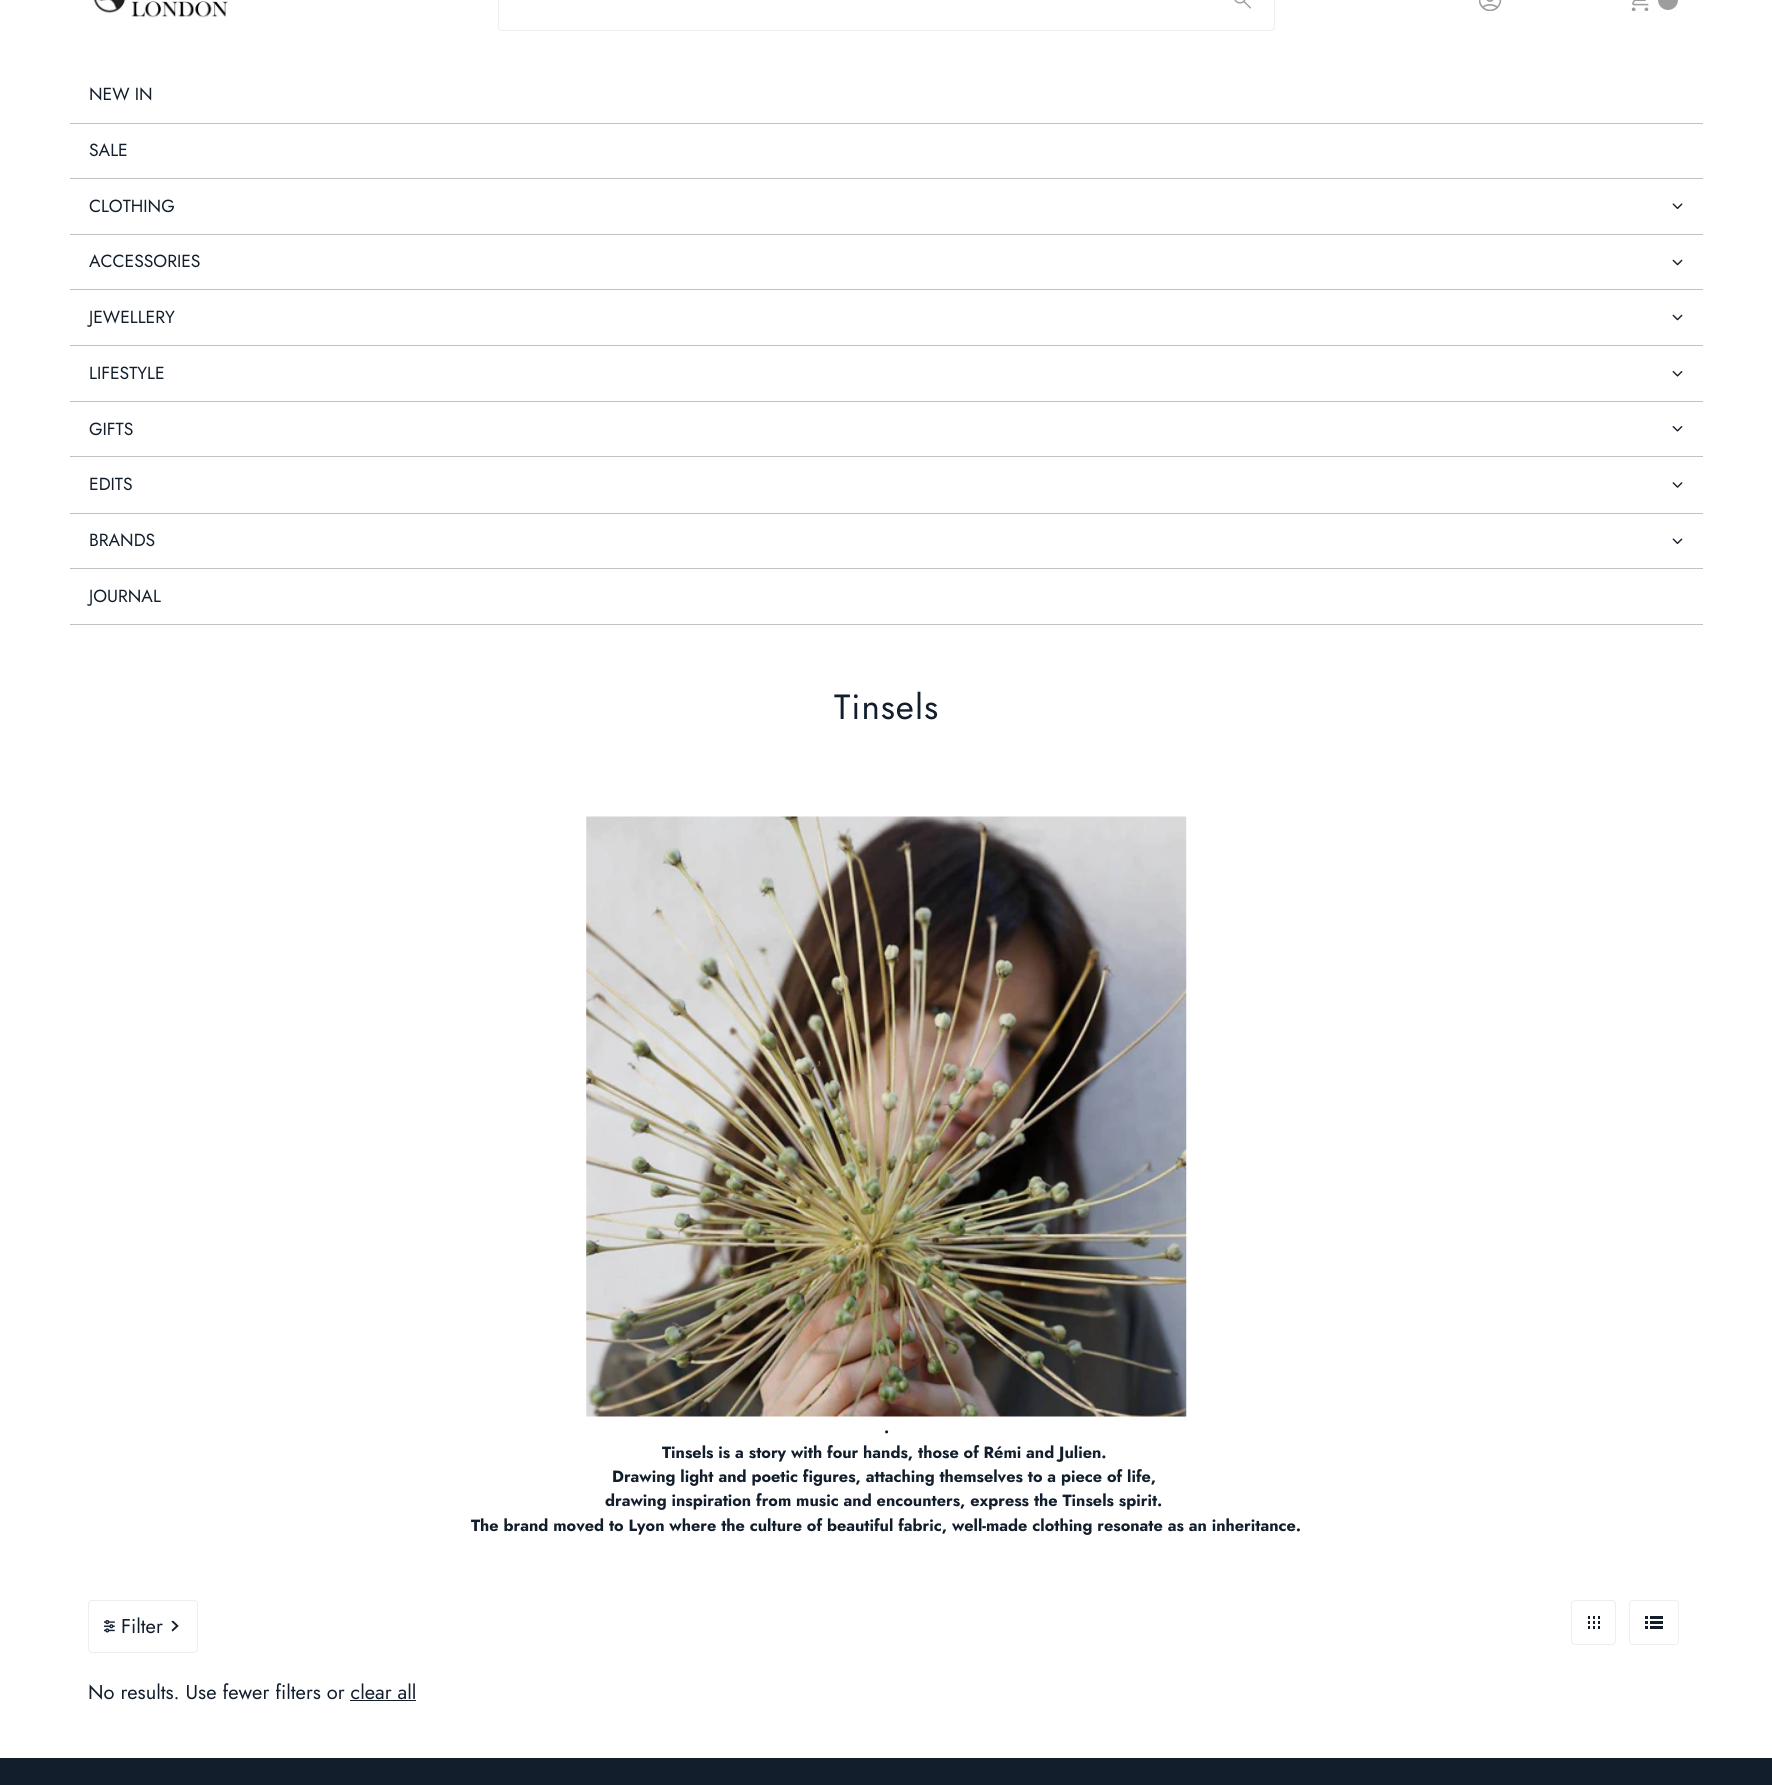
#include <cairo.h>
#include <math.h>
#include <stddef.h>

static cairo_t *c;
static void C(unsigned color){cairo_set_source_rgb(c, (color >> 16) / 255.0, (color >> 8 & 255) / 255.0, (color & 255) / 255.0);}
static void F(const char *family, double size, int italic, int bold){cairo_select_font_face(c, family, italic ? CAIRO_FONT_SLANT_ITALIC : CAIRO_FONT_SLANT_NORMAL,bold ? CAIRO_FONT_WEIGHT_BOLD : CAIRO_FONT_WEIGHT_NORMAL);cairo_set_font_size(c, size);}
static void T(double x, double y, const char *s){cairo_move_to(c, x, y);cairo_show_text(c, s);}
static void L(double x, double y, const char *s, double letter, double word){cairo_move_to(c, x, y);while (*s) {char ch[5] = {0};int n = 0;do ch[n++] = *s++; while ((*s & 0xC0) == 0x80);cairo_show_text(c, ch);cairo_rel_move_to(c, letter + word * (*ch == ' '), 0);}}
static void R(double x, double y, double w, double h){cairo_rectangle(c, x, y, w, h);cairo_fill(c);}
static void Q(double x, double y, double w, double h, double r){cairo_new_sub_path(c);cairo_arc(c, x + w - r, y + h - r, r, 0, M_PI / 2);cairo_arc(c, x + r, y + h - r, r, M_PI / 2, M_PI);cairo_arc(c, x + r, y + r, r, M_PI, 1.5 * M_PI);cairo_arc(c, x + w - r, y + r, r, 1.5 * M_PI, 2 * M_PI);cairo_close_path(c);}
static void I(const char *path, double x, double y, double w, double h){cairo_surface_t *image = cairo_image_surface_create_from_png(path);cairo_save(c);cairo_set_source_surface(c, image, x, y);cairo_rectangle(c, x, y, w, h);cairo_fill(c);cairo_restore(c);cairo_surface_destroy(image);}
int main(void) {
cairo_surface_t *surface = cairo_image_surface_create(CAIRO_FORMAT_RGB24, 1772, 1785);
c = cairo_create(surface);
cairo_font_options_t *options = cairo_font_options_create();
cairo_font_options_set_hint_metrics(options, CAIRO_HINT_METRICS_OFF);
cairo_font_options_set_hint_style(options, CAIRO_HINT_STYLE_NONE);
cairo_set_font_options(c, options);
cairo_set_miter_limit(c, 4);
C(0xffffff);
cairo_paint(c);
I("1.png",93,0,135,18);
Q(498.5,-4.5,776,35,3.5);
C(0xeeeeee);
cairo_set_line_width(c,1);
cairo_stroke(c);
I("2.png",1234,0,17,9);
I("3.png",1479,0,23,11);
I("4.png",1631,0,18,11);
C(0x9e9d9d);
cairo_arc(c,1668,0,10,0,2 * M_PI);
cairo_fill(c);
C(0xc2c2c2);
R(70,123,1633,1);
F("Jost",17.5,0,0);
C(0x121e2c);
T(89,100,"NEW IN");
C(0xc2c2c2);
R(70,178,1633,1);
C(0x121e2c);
T(89,156,"SALE");
C(0xc2c2c2);
R(70,234,1633,1);
C(0x121e2c);
T(89,212,"CLOTHING");
I("5.png",1672,203,11,6);
C(0xc2c2c2);
R(70,289,1633,1);
C(0x121e2c);
T(89,267,"ACCESSORIES");
I("6.png",1672,259,11,7);
C(0xc2c2c2);
R(70,345,1633,1);
C(0x121e2c);
T(89,323,"JEWELLERY");
I("6.png",1672,314,11,7);
C(0xc2c2c2);
R(70,401,1633,1);
C(0x121e2c);
T(89,379,"LIFESTYLE");
I("7.png",1672,371,11,6);
C(0xc2c2c2);
R(70,456,1633,1);
C(0x121e2c);
T(89,435,"GIFTS");
I("7.png",1672,426,11,6);
C(0xc2c2c2);
R(70,513,1633,1);
C(0x121e2c);
T(89,490,"EDITS");
I("8.png",1672,482,11,6);
C(0xc2c2c2);
R(70,568,1633,1);
C(0x121e2c);
T(89,546,"BRANDS");
I("5.png",1672,538,11,6);
C(0xc2c2c2);
R(70,624,1633,1);
C(0x121e2c);
T(89,602,"JOURNAL");
F("Jost",35,0,0);
L(834,719,"Tinsels",1,0);
I("9.png",586,816,601,601);
F("Jost",16.25,0,1);
T(884,1433,".");
T(662,1458,"Tinsels is a story with four hands, those of Rémi and Julien.");
T(612,1482,"Drawing light and poetic figures, attaching themselves to a piece of life,");
T(605,1506,"drawing inspiration from music and encounters, express the Tinsels spirit.");
T(471,1531,"The brand moved to Lyon where the culture of beautiful fabric, well-made clothing resonate as an inheritance.");
Q(88.5,1600.5,109,52,3.5);
C(0xeeeeee);
cairo_stroke(c);
I("10.png",104,1620,11,13);
F("Jost",20,0,0);
C(0x121e2c);
T(121,1633,"Filter");
I("11.png",171,1620,8,12);
Q(1571.5,1600.5,44,44,3.5);
C(0xeeeeee);
cairo_stroke(c);
I("12.png",1588,1616,12,13);
Q(1629.5,1600.5,49,44,3.5);
cairo_stroke(c);
I("13.png",1645,1616,18,13);
C(0x121e2c);
T(88,1699,"No results. Use fewer filters or clear all");
R(350,1700,66,1);
R(0,1758,1772,27);
cairo_surface_write_to_png(surface, "o.png");
cairo_font_options_destroy(options);
cairo_destroy(c);
cairo_surface_destroy(surface);
return 0;
}
